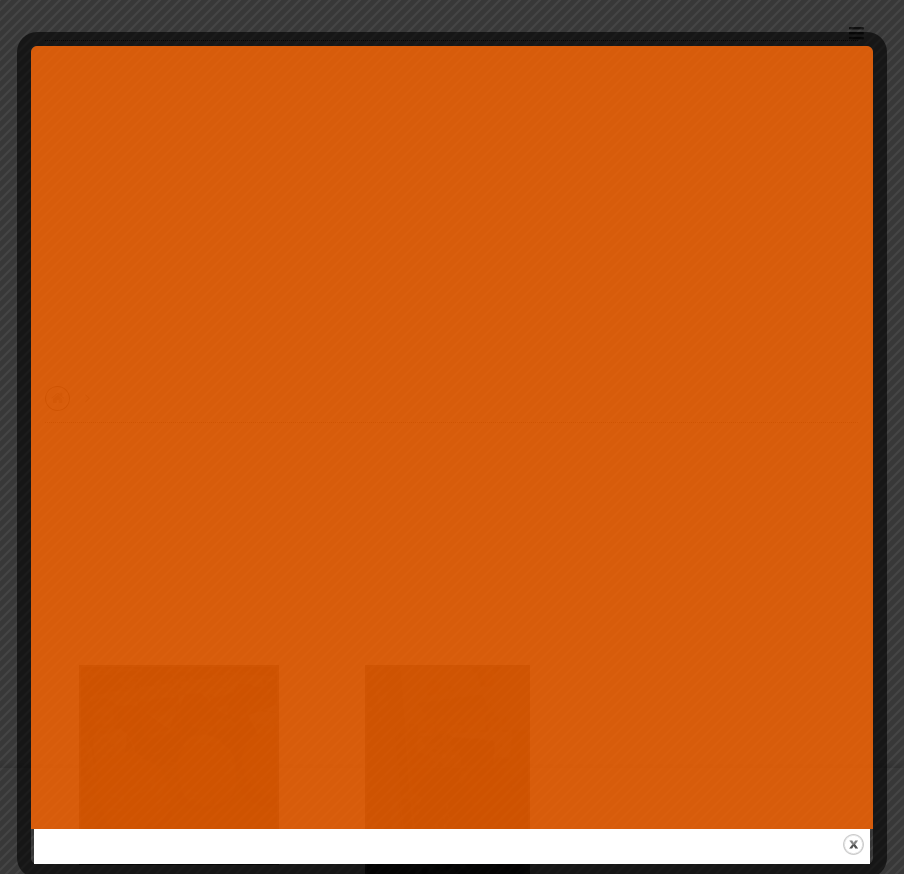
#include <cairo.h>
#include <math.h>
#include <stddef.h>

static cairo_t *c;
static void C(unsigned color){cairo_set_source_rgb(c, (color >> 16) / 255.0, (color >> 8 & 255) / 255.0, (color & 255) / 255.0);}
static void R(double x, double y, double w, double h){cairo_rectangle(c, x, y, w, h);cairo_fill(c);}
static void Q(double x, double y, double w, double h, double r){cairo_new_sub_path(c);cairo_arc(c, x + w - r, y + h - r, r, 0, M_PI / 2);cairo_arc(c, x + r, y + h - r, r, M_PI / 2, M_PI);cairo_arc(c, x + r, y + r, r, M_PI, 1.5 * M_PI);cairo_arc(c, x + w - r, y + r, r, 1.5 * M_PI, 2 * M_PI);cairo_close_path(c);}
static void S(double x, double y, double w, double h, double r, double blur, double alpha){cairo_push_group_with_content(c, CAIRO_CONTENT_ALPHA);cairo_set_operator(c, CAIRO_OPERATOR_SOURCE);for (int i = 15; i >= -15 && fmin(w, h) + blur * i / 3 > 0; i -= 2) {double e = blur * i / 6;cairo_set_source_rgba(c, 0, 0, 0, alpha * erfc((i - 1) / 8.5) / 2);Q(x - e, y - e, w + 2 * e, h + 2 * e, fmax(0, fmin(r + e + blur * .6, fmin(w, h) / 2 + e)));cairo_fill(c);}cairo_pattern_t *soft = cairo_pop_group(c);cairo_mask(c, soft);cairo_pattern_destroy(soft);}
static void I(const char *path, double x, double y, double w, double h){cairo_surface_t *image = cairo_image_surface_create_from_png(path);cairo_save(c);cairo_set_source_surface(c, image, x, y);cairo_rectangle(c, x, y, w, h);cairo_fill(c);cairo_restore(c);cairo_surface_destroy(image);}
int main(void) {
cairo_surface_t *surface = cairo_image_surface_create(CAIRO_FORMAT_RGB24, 904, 874);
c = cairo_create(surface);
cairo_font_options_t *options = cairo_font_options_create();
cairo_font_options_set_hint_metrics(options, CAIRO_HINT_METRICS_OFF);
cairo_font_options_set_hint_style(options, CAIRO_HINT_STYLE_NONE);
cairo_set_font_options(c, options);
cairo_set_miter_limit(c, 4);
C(0xffffff);
cairo_paint(c);
I("2.png",849,27,15,13);
cairo_new_path(c);
cairo_move_to(c,45,40.5);
cairo_line_to(c,859,40.5);
C(0x282828);
cairo_set_line_width(c,1);
cairo_set_dash(c,(double[]){1,1},2,0);
cairo_stroke(c);
cairo_new_path(c);
cairo_move_to(c,45,422.5);
cairo_line_to(c,859,422.5);
C(0x252525);
cairo_stroke(c);
cairo_arc(c,57.5,398.5,12,0,2 * M_PI);
C(0x1b1b1b);
cairo_set_dash(c,NULL,0,0);
cairo_stroke(c);
I("4.png",51,392,13,11);
I("5.png",85,394,5,9);
cairo_rectangle(c,80,666,198,198);
C(0x292929);
cairo_set_line_width(c,2);
cairo_stroke(c);
I("6.png",81,667,196,162);
cairo_rectangle(c,366,666,163,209);
cairo_stroke(c);
I("7.png",367,667,161,207);
cairo_save(c);
cairo_rectangle(c,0,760,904,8);
cairo_clip(c);
C(0x222222);
S(0,767,904,106,0,5,.3);
cairo_restore(c);
I("1.png",0,0,904,874);
Q(24,39,856,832,13);
cairo_set_source_rgba(c,0,0,0,0.6);
cairo_set_line_width(c,14);
cairo_stroke(c);
cairo_set_source_rgba(c,1,0.4,0,0.8);
cairo_new_path(c);
cairo_move_to(c,37,46);
cairo_line_to(c,867,46);
cairo_curve_to(c,870,46,873,49,873,52);
cairo_line_to(c,873,829);
cairo_line_to(c,31,829);
cairo_line_to(c,31,52);
cairo_curve_to(c,31,49,34,46,37,46);
cairo_close_path(c);
cairo_fill(c);
C(0xffffff);
R(34,829,836,35);
I("3.png",843,834,21,21);
cairo_surface_write_to_png(surface, "o.png");
cairo_font_options_destroy(options);
cairo_destroy(c);
cairo_surface_destroy(surface);
return 0;
}
